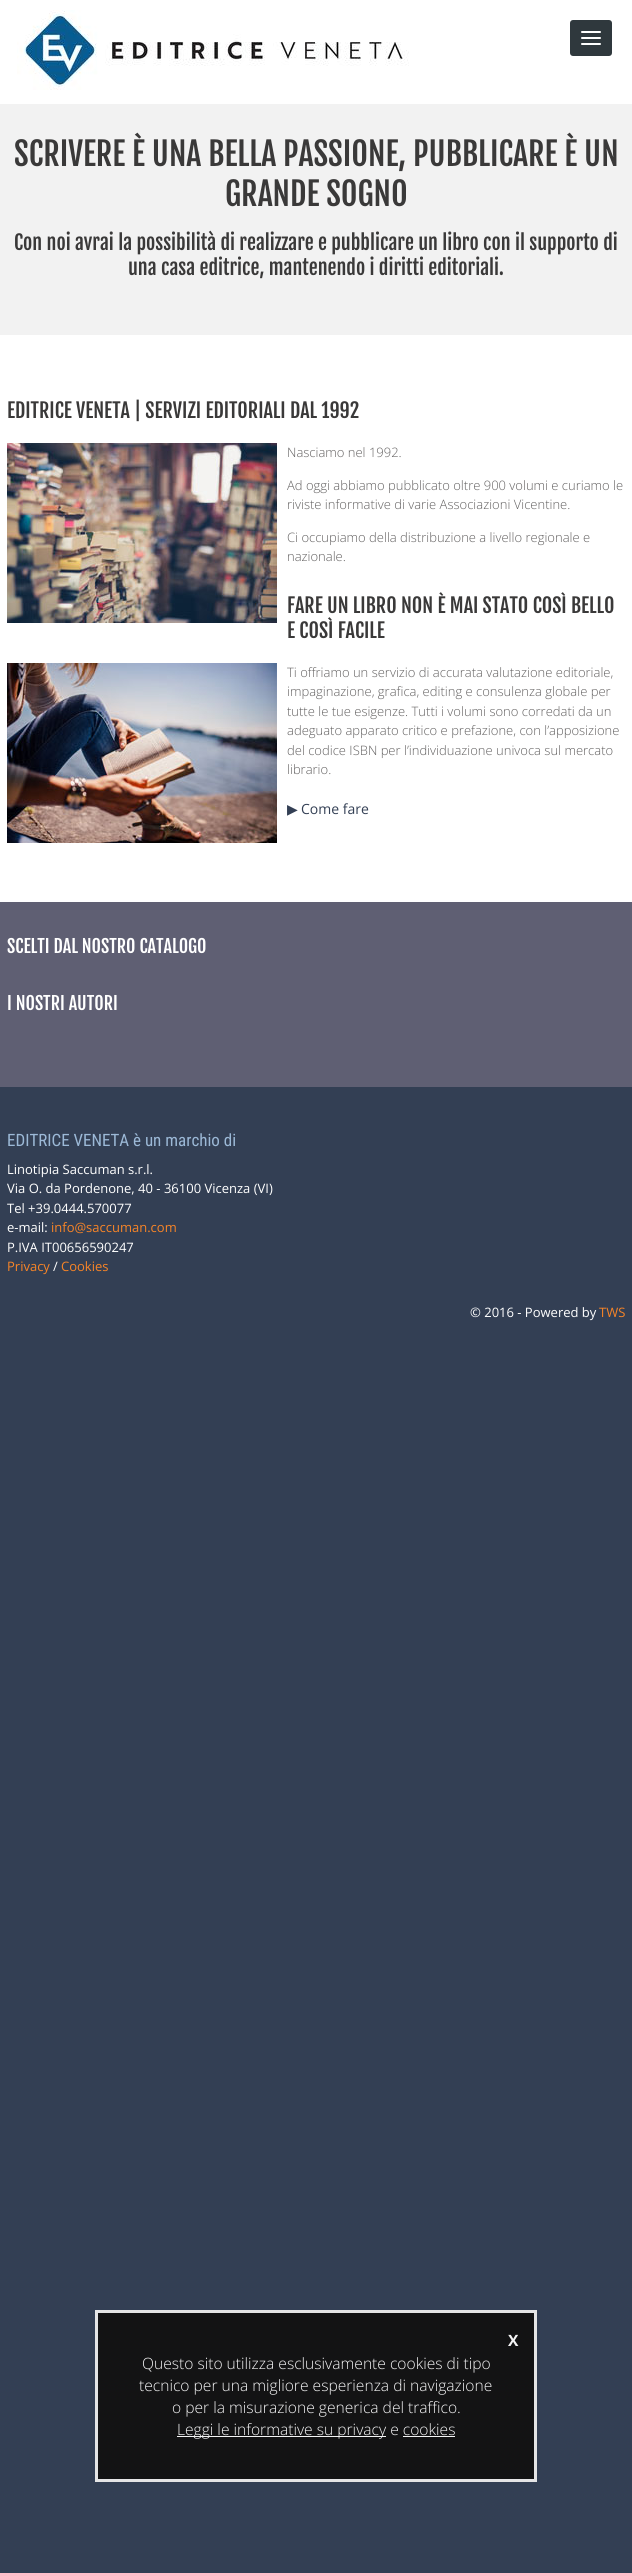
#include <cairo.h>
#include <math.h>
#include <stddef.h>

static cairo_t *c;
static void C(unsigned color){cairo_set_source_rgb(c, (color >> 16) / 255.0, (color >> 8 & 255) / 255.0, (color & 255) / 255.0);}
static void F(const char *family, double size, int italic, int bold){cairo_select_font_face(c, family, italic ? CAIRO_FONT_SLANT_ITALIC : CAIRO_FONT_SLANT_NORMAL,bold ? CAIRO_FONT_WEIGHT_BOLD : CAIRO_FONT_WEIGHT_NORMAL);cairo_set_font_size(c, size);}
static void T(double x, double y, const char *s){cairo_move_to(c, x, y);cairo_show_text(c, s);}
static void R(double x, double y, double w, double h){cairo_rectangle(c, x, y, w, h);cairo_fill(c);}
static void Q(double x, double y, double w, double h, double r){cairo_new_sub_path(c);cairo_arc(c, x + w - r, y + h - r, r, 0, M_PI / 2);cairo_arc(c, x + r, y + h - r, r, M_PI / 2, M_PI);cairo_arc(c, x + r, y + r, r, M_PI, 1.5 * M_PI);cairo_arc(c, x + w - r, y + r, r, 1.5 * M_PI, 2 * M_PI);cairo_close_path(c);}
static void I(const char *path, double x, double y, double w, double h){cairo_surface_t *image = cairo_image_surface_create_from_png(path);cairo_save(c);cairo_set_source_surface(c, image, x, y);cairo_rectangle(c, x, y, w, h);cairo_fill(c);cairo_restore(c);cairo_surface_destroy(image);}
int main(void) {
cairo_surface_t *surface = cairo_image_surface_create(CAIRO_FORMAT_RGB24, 632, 2573);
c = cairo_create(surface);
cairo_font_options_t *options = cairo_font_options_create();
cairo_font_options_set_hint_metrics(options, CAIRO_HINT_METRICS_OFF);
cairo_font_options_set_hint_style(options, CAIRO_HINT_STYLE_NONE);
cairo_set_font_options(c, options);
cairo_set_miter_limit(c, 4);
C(0x333f54);
cairo_paint(c);
C(0xffffff);
R(0,0,632,104);
I("1.png",17,10,392,80);
C(0x2f383d);
Q(570,20,42,36,3);
cairo_fill(c);
C(0xffffff);
Q(581,31,20,2,1);
cairo_fill(c);
Q(581,37,20,2,1);
cairo_fill(c);
Q(581,43,20,2,1);
cairo_fill(c);
C(0xf2f2f2);
R(0,104,632,231);
F("Fjalla One",32,0,0);
C(0x3a3939);
T(14,166,"SCRIVERE È UNA BELLA PASSIONE, PUBBLICARE È UN");
T(225,206,"GRANDE SOGNO");
F("Fjalla One",20,0,0);
T(14,250,"Con noi avrai la possibilità di realizzare e pubblicare un libro con il supporto di");
T(128,275,"una casa editrice, mantenendo i diritti editoriali.");
C(0xffffff);
R(0,335,632,567);
C(0x3a3939);
T(7,418,"EDITRICE VENETA | SERVIZI EDITORIALI DAL 1992");
I("2.png",7,443,270,180);
F("Open Sans Light",13,0,0);
C(0x636161);
T(287,457,"Nasciamo nel 1992.");
T(287,490,"Ad oggi abbiamo pubblicato oltre 900 volumi e curiamo le");
T(287,509,"riviste informative di varie Associazioni Vicentine.");
T(287,542,"Ci occupiamo della distribuzione a livello regionale e");
T(287,561,"nazionale.");
F("Fjalla One",20,0,0);
C(0x3a3939);
T(287,613,"FARE UN LIBRO NON È MAI STATO COSÌ BELLO");
T(287,638,"E COSÌ FACILE");
I("3.png",7,663,270,180);
F("Open Sans Light",13,0,0);
C(0x636161);
T(287,677,"Ti offriamo un servizio di accurata valutazione editoriale,");
T(287,696,"impaginazione, grafica, editing e consulenza globale per");
T(287,716,"tutte le tue esigenze. Tutti i volumi sono corredati da un");
T(287,735,"adeguato apparato critico e prefazione, con l’apposizione");
T(287,755,"del codice ISBN per l’individuazione univoca sul mercato");
T(287,774,"librario.");
F("DejaVu Sans",14,0,0);
C(0x333f54);
T(287,814,"▶");
F("Open Sans",14,0,0);
T(301,814,"Come fare");
C(0x5f5f73);
R(0,902,632,185);
F("Fjalla One",18,0,0);
C(0xffffff);
T(7,953,"SCELTI DAL NOSTRO CATALOGO");
T(7,1010,"I NOSTRI AUTORI");
F("Roboto Condensed",17,0,0);
C(0x9cb9d7);
T(7,1146,"EDITRICE VENETA è un marchio di");
F("Open Sans",13,0,0);
C(0xffffff);
T(7,1174,"Linotipia Saccuman s.r.l.");
T(7,1193,"Via O. da Pordenone, 40 - 36100 Vicenza (VI)");
T(7,1213,"Tel +39.0444.570077");
T(7,1232,"e-mail:");
C(0xf78427);
T(51,1232,"info@saccuman.com");
C(0xffffff);
T(7,1252,"P.IVA IT00656590247");
C(0xf78427);
T(7,1271,"Privacy");
C(0xffffff);
T(53,1271,"/");
C(0xf78427);
T(61,1271,"Cookies");
C(0xffffff);
T(470,1317,"© 2016 - Powered by");
C(0xf78427);
T(599,1317,"TWS");
C(0x131314);
cairo_rectangle(c,96.5,2311.5,439,169);
cairo_fill_preserve(c);
C(0xe5e5e6);
cairo_set_line_width(c,3);
cairo_stroke(c);
F("Open Sans",15.6,0,1);
C(0xf5f5f6);
T(508,2346,"X");
F("Open Sans Light",15.6,0,0);
T(142,2369,"Questo sito utilizza esclusivamente cookies di tipo");
T(139,2391,"tecnico per una migliore esperienza di navigazione");
T(172,2413,"o per la misurazione generica del traffico.");
R(177,2436,209,1);
T(177,2435,"Leggi le informative su privacy e cookies");
R(403,2436,52,1);
cairo_surface_write_to_png(surface, "o.png");
cairo_font_options_destroy(options);
cairo_destroy(c);
cairo_surface_destroy(surface);
return 0;
}
